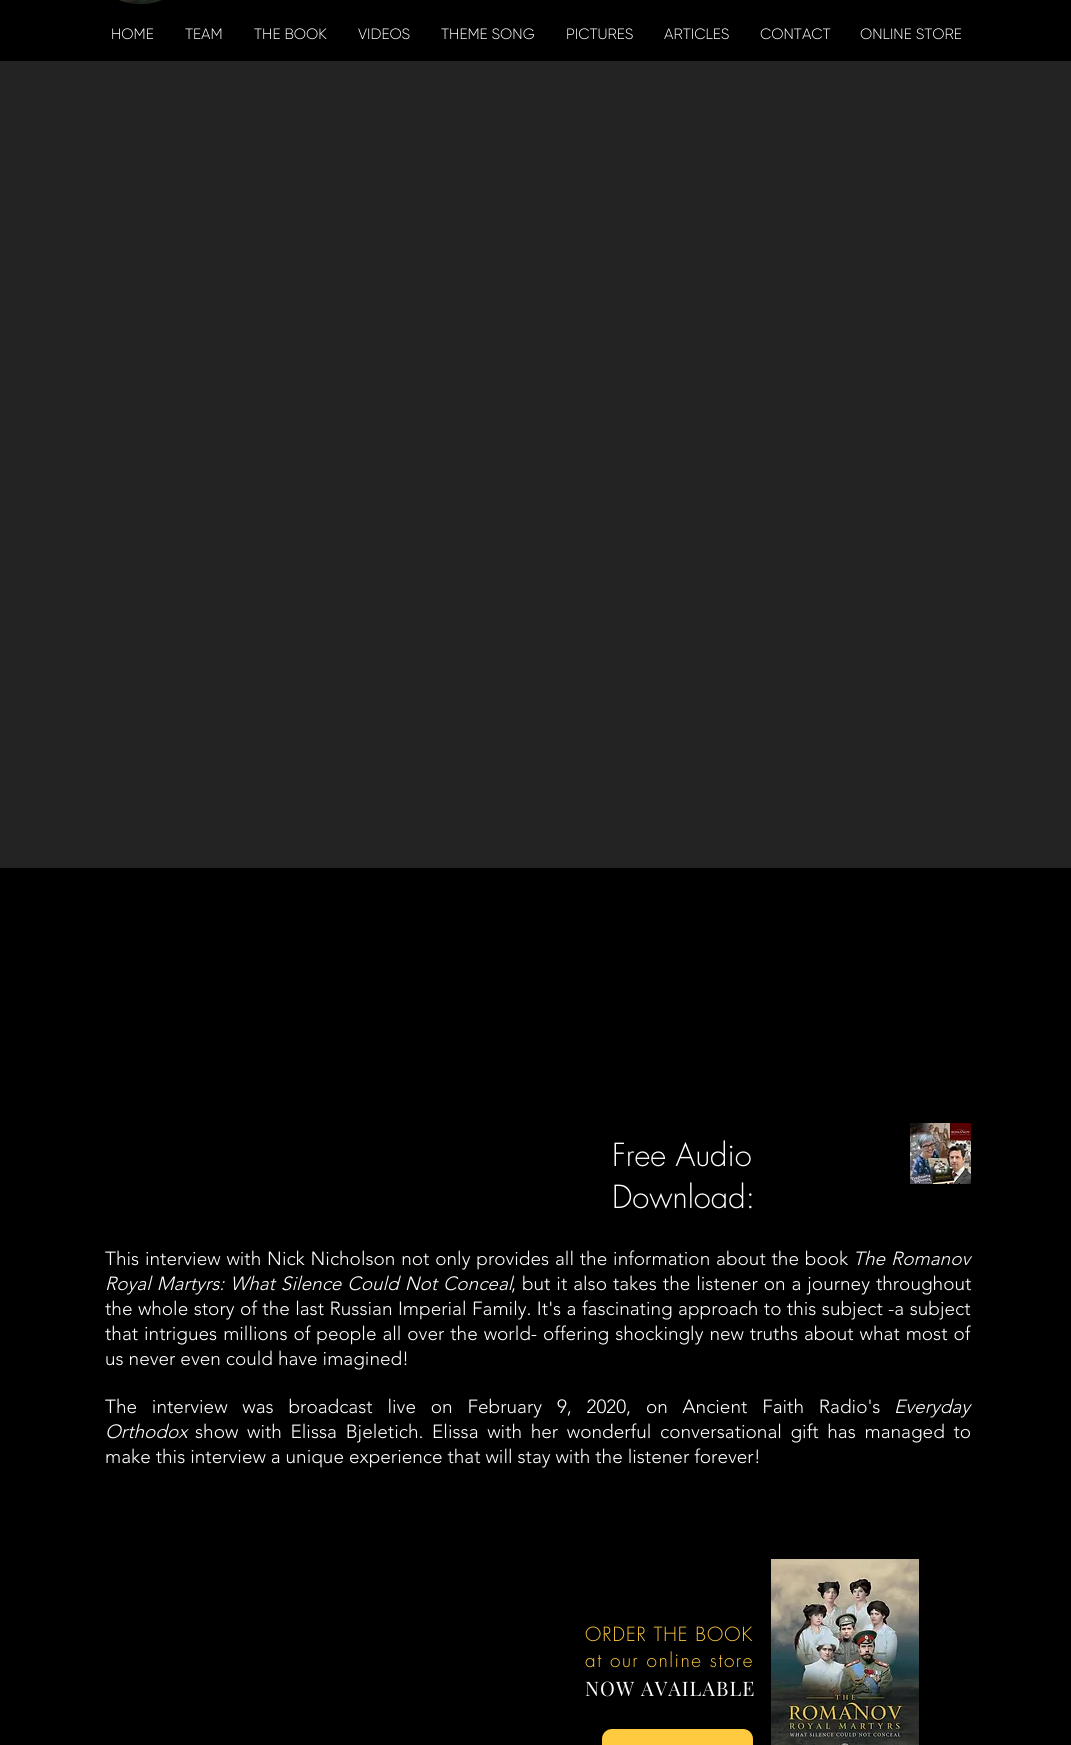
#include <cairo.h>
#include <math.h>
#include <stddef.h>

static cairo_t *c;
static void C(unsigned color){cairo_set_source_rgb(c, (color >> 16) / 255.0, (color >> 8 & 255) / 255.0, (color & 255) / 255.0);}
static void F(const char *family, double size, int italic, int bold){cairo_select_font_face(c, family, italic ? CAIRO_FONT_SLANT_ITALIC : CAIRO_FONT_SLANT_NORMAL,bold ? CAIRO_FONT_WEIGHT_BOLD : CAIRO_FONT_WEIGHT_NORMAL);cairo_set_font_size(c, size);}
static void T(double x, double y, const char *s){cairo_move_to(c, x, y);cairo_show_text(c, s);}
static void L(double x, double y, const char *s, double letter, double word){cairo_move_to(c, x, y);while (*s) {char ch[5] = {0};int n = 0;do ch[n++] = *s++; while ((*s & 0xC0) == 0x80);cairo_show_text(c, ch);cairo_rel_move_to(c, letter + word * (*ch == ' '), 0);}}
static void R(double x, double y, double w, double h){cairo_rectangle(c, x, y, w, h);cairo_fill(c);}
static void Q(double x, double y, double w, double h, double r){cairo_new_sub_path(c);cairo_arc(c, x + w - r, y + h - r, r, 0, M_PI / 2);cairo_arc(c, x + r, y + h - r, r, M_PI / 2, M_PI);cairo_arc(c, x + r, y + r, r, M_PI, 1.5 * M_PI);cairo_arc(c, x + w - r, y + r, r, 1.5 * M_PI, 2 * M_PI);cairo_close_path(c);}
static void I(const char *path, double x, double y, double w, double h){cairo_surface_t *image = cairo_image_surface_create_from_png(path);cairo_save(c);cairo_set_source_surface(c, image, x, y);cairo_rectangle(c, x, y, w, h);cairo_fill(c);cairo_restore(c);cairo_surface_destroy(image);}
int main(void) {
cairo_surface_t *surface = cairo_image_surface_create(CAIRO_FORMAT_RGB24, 1071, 1745);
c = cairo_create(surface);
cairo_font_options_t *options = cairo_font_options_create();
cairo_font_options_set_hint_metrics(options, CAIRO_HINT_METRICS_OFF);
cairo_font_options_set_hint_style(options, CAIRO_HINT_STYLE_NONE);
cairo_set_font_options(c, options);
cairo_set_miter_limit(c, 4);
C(0x000000);
cairo_paint(c);
I("1.png",119,0,43,4);
F("Gilroy Light",15,0,0);
C(0xffffff);
T(111,39,"HOME");
T(185,39,"TEAM");
T(254,39,"THE BOOK");
T(358,39,"VIDEOS");
T(441,39,"THEME SONG");
T(566,39,"PICTURES");
T(664,39,"ARTICLES");
T(760,39,"CONTACT");
T(860,39,"ONLINE STORE");
C(0x242323);
R(0,61,1071,807);
F("futura Light",31,0,0);
C(0xffffff);
T(612,1166,"Free Audio");
T(612,1208,"Download:");
I("2.png",910,1123,61,61);
F("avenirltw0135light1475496 Light",19,0,0);
L(105,1265,"This interview with Nick Nicholson not only provides all the information about the book",0,.9);
F("avenirltw0135light1475496 Light",19,1,0);
L(853,1265,"The Romanov",0,1);
L(105,1290,"Royal Martyrs: What Silence Could Not Conceal",0,1);
F("avenirltw0135light1475496 Light",19,0,0);
L(511,1290,", but it also takes the listener on a journey throughout",0,1);
L(105,1315,"the whole story of the last Russian Imperial Family. It's a fascinating approach to this subject",0,.5);
L(888,1315,"-a subject",0,.5);
L(105,1340,"that intrigues millions of people all over the world- offering shockingly new truths about what most of",0,1);
T(105,1365,"us never even could have imagined!");
L(105,1413,"The interview was broadcast live on February 9, 2020, on Ancient Faith Radio's",0,9.9);
F("avenirltw0135light1475496 Light",19,1,0);
T(894,1413,"Everyday");
T(105,1438,"Orthodox");
F("avenirltw0135light1475496 Light",19,0,0);
L(195,1438,"show with Elissa Bjeletich. Elissa with her wonderful conversational gift has managed to",0,3.75);
T(105,1463,"make this interview a unique experience that will stay with the listener forever!");
F("futura Light",19,0,0);
C(0xffc940);
L(585,1641,"ORDER THE BOOK",1,0);
L(585,1667,"at our online store",1.5,0);
F("Playfair Display",20,0,0);
C(0xffffff);
L(585,1696,"NOW AVAILABLE",1,0);
I("3.png",771,1559,148,186);
C(0xffc940);
Q(602,1729,151,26,10);
cairo_fill(c);
cairo_surface_write_to_png(surface, "o.png");
cairo_font_options_destroy(options);
cairo_destroy(c);
cairo_surface_destroy(surface);
return 0;
}
